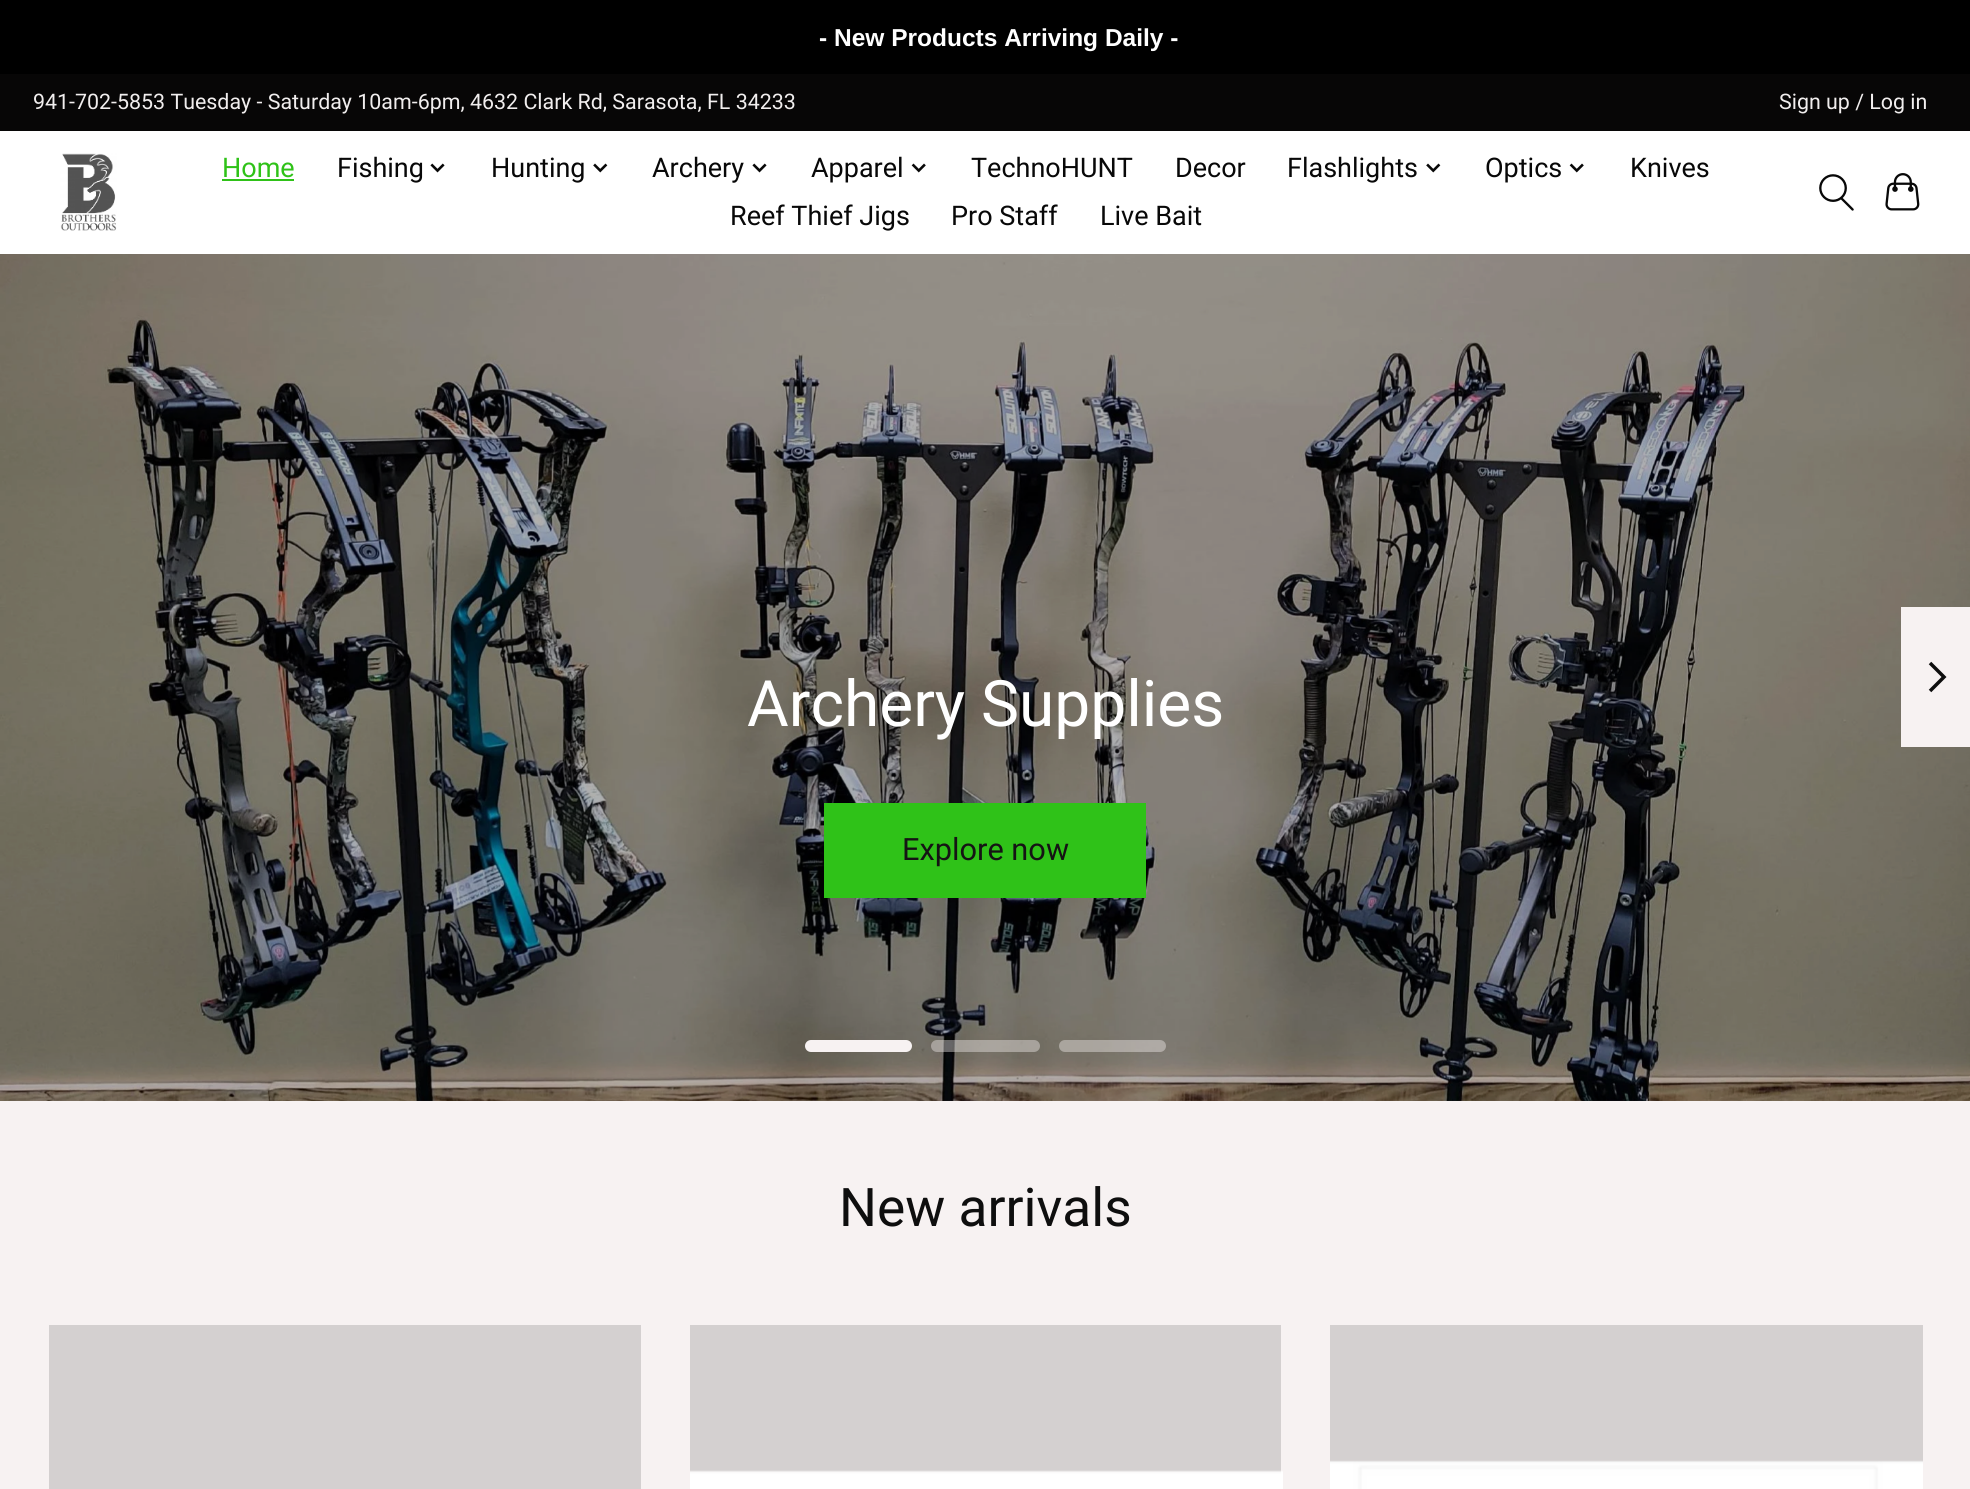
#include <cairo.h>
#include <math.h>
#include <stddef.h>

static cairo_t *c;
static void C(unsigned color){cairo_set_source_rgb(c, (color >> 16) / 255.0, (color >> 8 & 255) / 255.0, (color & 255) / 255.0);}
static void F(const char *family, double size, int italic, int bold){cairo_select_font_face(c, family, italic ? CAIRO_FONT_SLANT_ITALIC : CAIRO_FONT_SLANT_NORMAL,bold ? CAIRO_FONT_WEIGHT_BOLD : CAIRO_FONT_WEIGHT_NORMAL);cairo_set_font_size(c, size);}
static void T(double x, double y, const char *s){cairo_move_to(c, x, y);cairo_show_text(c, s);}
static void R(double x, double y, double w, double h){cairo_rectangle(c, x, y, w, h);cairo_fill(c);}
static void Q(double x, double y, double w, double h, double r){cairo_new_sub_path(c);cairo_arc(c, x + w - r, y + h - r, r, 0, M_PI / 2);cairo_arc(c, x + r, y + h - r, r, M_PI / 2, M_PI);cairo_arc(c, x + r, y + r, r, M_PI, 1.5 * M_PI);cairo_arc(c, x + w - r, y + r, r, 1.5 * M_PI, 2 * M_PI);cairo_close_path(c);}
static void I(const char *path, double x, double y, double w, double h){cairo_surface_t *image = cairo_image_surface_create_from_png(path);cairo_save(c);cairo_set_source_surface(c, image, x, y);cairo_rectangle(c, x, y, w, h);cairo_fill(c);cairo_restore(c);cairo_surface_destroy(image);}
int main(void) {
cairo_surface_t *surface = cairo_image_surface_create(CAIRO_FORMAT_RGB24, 1970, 1489);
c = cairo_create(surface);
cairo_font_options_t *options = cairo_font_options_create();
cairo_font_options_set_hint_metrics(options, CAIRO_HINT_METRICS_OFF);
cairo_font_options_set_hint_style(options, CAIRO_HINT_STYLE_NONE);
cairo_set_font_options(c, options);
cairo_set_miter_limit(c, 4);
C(0xf7f2f2);
cairo_paint(c);
C(0x000000);
R(0,0,1970,74);
F("Liberation Sans",24.5,0,1);
C(0xffffff);
T(819,46,"- New Products Arriving Daily -");
R(0,131,1970,123);
C(0x070606);
R(0,74,1970,57);
F("Roboto",21.4,0,0);
C(0xf1eeee);
T(33,109,"941-702-5853 Tuesday - Saturday 10am-6pm, 4632 Clark Rd, Sarasota, FL 34233");
T(1779,109,"Sign up / Log in");
I("1.png",60,153,57,78);
F("Roboto",27,0,0);
C(0x2fc218);
T(222,177,"Home");
R(222,179,72,2);
C(0x080808);
T(337,177,"Fishing");
I("2.png",430,163,15,10);
T(491,177,"Hunting");
I("3.png",593,163,15,10);
T(652,177,"Archery");
I("2.png",752,163,15,10);
T(811,177,"Apparel");
I("4.png",911,163,15,10);
T(971,177,"TechnoHUNT");
T(1175,177,"Decor");
T(1287,177,"Flashlights");
I("3.png",1426,163,15,10);
T(1485,177,"Optics");
I("4.png",1569,163,15,10);
T(1630,177,"Knives");
T(730,225,"Reef Thief Jigs");
T(951,225,"Pro Staff");
T(1100,225,"Live Bait");
I("5.png",1819,174,35,37);
I("6.png",1885,173,35,38);
I("7.png",0,254,1970,847);
F("Roboto",64,0,0);
C(0xffffff);
T(747,726,"Archery Supplies");
C(0x2fc218);
R(824,803,322,95);
F("Roboto",30.75,0,0);
C(0x151414);
T(902,860,"Explore now");
C(0xf7f2f2);
R(1901,607,69,140);
cairo_new_path(c);
cairo_move_to(c,1930,691);
cairo_line_to(c,1944,677);
cairo_line_to(c,1930,663);
C(0x0e0e0e);
cairo_set_line_width(c,3.5);
cairo_stroke(c);
C(0xf7f2f2);
Q(805,1040,107,12,6);
cairo_fill(c);
cairo_set_source_rgba(c,0.969,0.949,0.949,0.4);
Q(931,1040,109,12,6);
cairo_fill(c);
Q(1059,1040,107,12,6);
cairo_fill(c);
F("Roboto",53.25,0,0);
C(0x0e0e0e);
T(839,1226,"New arrivals");
C(0xd4d0d0);
R(49,1325,592,164);
R(690,1325,591,149);
I("8.png",690,1470,593,19);
R(1330,1325,593,139);
I("9.png",1330,1460,593,29);
cairo_surface_write_to_png(surface, "o.png");
cairo_font_options_destroy(options);
cairo_destroy(c);
cairo_surface_destroy(surface);
return 0;
}
